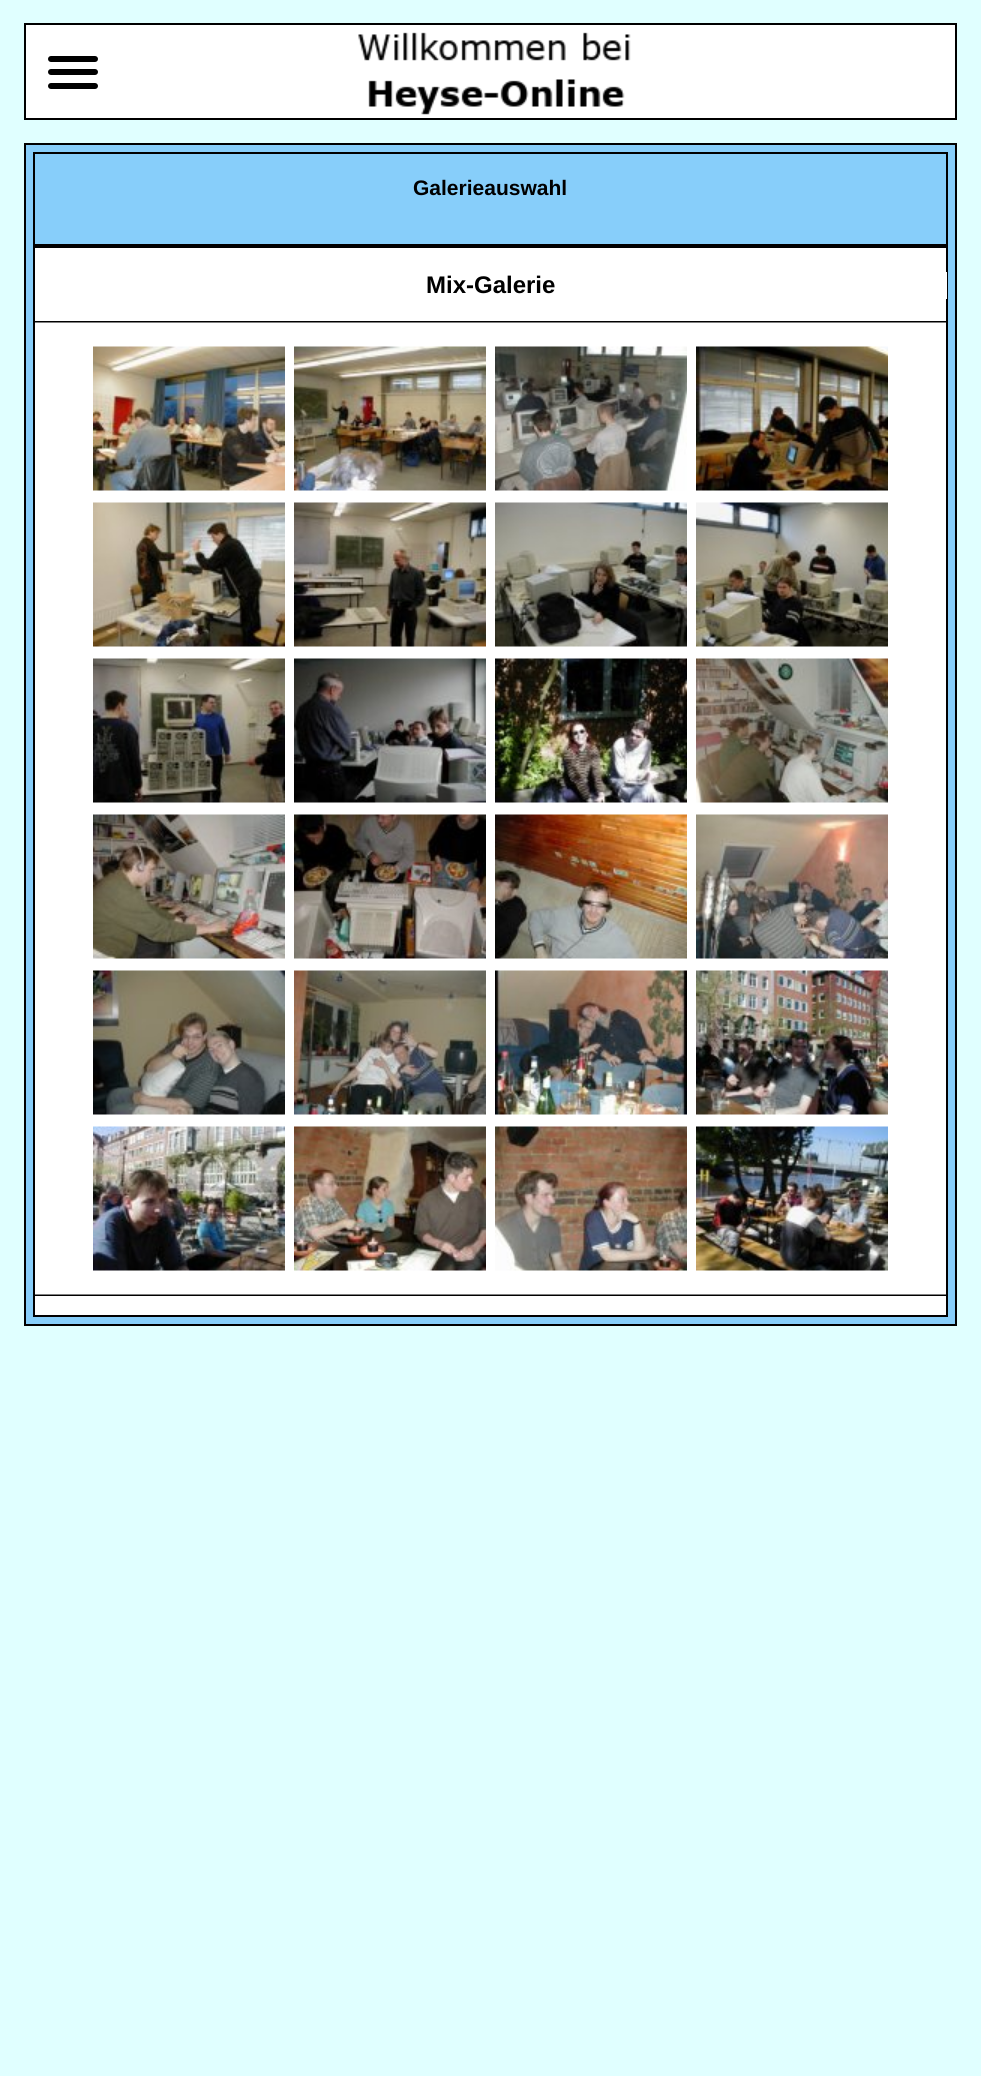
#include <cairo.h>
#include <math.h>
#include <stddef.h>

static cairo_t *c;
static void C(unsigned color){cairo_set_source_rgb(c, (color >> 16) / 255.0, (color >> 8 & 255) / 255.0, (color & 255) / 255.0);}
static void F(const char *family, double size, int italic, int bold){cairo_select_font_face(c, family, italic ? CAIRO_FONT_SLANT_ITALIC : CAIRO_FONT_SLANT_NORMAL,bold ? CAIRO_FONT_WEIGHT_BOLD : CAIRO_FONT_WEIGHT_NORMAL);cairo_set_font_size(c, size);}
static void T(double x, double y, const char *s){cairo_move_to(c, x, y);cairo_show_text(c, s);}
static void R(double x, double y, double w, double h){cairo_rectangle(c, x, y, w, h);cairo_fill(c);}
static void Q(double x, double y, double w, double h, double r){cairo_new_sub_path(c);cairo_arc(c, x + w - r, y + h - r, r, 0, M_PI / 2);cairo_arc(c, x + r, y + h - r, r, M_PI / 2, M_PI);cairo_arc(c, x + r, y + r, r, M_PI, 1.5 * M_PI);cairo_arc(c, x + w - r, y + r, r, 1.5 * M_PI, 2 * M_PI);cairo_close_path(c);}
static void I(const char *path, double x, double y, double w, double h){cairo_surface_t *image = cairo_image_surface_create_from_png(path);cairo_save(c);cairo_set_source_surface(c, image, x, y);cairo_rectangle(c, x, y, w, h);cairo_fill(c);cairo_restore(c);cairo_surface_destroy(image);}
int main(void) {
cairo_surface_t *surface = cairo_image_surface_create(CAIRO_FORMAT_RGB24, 981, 2076);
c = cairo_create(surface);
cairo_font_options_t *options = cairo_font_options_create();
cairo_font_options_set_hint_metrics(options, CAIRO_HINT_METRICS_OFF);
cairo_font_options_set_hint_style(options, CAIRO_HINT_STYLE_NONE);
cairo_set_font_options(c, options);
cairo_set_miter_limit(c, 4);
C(0xe0ffff);
cairo_paint(c);
C(0xffffff);
cairo_rectangle(c,25,24,931,95);
cairo_fill_preserve(c);
C(0x000000);
cairo_stroke(c);
Q(48,56,50,6,3);
cairo_fill(c);
Q(48,69,50,6,3);
cairo_fill(c);
Q(48,83,50,6,3);
cairo_fill(c);
I("1.png",358,32,273,83);
C(0x87cefa);
cairo_rectangle(c,25,144,931,1181);
cairo_fill_preserve(c);
C(0x000000);
cairo_stroke(c);
cairo_rectangle(c,34,153,913,92);
cairo_stroke(c);
F("Liberation Sans",21,0,1);
T(413,195,"Galerieauswahl");
C(0xffffff);
cairo_rectangle(c,34,247,913,1069);
cairo_fill_preserve(c);
C(0x000000);
cairo_stroke(c);
C(0xffffff);
R(946,272,1,27);
F("Liberation Sans",24,0,1);
C(0x000000);
T(426,293,"Mix-Galerie");
I("2.png",35,321,911,2);
I("3.png",93,346,192,145);
I("4.png",294,346,192,145);
I("5.png",495,346,192,145);
I("6.png",696,346,192,145);
I("7.png",93,502,192,145);
I("8.png",294,502,192,145);
I("9.png",495,502,192,145);
I("10.png",696,502,192,145);
I("11.png",93,658,192,145);
I("12.png",294,658,192,145);
I("13.png",495,658,192,145);
I("14.png",696,658,192,145);
I("15.png",93,814,192,145);
I("16.png",294,814,192,145);
I("17.png",495,814,192,145);
I("18.png",696,814,192,145);
I("19.png",93,970,192,145);
I("20.png",294,970,192,145);
I("21.png",495,970,192,145);
I("22.png",696,970,192,145);
I("23.png",93,1126,192,145);
I("24.png",294,1126,192,145);
I("25.png",495,1126,192,145);
I("26.png",696,1126,192,145);
I("27.png",35,1294,911,2);
cairo_surface_write_to_png(surface, "o.png");
cairo_font_options_destroy(options);
cairo_destroy(c);
cairo_surface_destroy(surface);
return 0;
}
